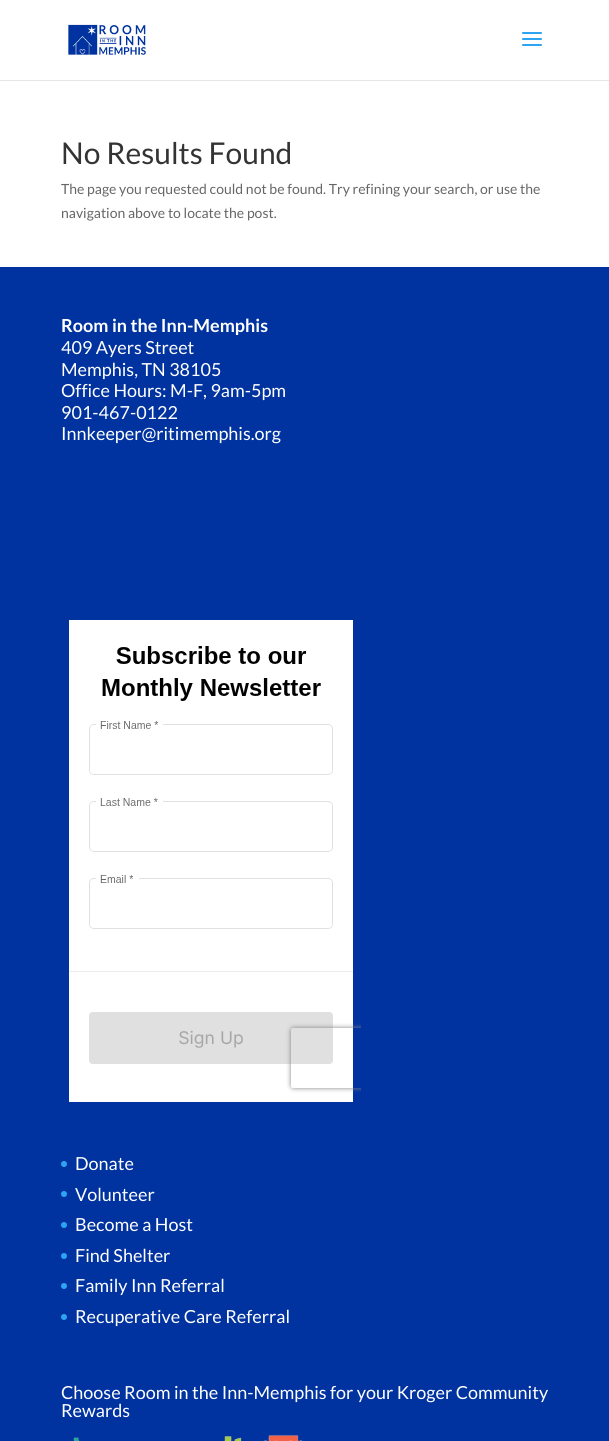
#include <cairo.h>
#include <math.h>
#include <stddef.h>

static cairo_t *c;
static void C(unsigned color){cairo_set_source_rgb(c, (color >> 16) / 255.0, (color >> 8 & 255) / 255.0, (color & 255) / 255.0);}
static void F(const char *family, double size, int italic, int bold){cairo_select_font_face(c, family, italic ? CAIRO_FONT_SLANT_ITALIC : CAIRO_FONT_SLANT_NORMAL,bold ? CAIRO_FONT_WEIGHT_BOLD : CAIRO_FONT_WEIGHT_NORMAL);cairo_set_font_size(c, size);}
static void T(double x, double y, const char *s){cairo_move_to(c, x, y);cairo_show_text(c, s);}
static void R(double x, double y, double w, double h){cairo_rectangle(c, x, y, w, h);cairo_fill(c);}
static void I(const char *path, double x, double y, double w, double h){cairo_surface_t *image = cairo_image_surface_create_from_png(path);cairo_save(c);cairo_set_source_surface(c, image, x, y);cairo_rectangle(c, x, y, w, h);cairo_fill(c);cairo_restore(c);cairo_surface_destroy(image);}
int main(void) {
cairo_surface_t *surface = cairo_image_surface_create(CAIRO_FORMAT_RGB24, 609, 1441);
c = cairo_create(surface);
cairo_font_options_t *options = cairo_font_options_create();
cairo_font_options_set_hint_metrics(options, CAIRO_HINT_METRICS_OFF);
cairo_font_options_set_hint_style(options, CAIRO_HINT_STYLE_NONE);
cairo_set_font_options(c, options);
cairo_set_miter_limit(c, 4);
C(0xffffff);
cairo_paint(c);
C(0xe6e6e6);
R(0,80,609,1);
I("1.png",68,24,78,31);
I("2.png",522,32,20,14);
F("Lato",30,0,0);
C(0x333333);
T(61,164,"No Results Found");
F("Lato",14,0,0);
C(0x666666);
T(61,194,"The page you requested could not be found. Try refining your search, or use the");
T(61,218,"navigation above to locate the post.");
C(0x0033a0);
R(0,267,609,1174);
F("Lato",18,0,1);
C(0xffffff);
T(61,332,"Room in the Inn-Memphis");
F("Lato",18,0,0);
T(61,354,"409 Ayers Street");
T(61,376,"Memphis, TN 38105");
T(61,397,"Office Hours: M-F, 9am-5pm");
T(61,419,"901-467-0122");
T(61,440,"Innkeeper@ritimemphis.org");
I("3.png",69,620,292,482);
C(0x2ea3f2);
cairo_arc(c,64,1164,3,0,2 * M_PI);
cairo_fill(c);
C(0xffffff);
T(75,1170,"Donate");
C(0x2ea3f2);
cairo_new_path(c);
cairo_arc(c,64,1194,3,0,2 * M_PI);
cairo_fill(c);
C(0xffffff);
T(75,1201,"Volunteer");
C(0x2ea3f2);
cairo_new_path(c);
cairo_arc(c,64,1225,3,0,2 * M_PI);
cairo_fill(c);
C(0xffffff);
T(75,1231,"Become a Host");
C(0x2ea3f2);
cairo_new_path(c);
cairo_arc(c,64,1256,3,0,2 * M_PI);
cairo_fill(c);
C(0xffffff);
T(75,1262,"Find Shelter");
C(0x2ea3f2);
cairo_new_path(c);
cairo_arc(c,64,1286,3,0,2 * M_PI);
cairo_fill(c);
C(0xffffff);
T(75,1292,"Family Inn Referral");
C(0x2ea3f2);
cairo_new_path(c);
cairo_arc(c,64,1317,3,0,2 * M_PI);
cairo_fill(c);
C(0xffffff);
T(75,1323,"Recuperative Care Referral");
T(61,1399,"Choose Room in the Inn-Memphis for your Kroger Community");
T(61,1417,"Rewards");
I("4.png",73,1435,230,6);
cairo_surface_write_to_png(surface, "o.png");
cairo_font_options_destroy(options);
cairo_destroy(c);
cairo_surface_destroy(surface);
return 0;
}
